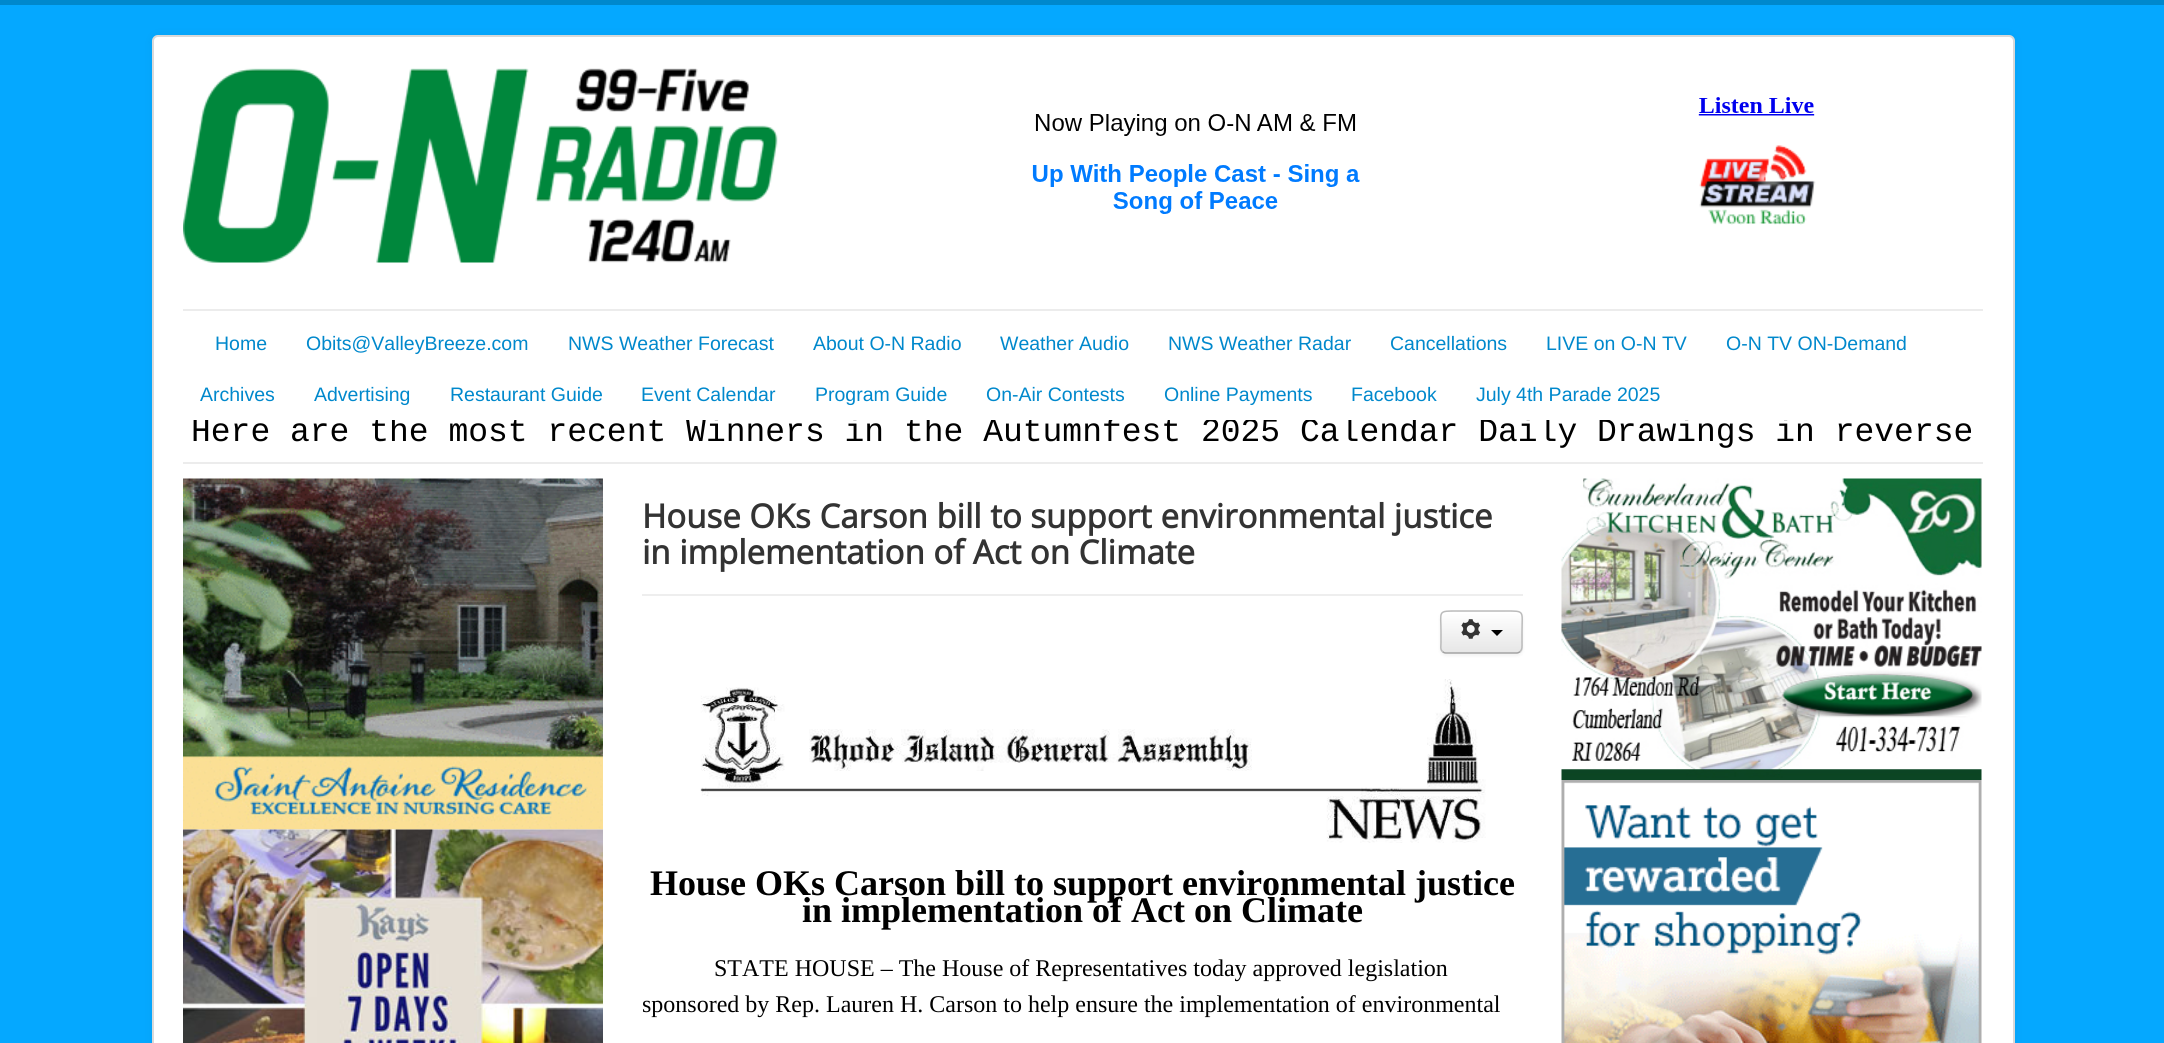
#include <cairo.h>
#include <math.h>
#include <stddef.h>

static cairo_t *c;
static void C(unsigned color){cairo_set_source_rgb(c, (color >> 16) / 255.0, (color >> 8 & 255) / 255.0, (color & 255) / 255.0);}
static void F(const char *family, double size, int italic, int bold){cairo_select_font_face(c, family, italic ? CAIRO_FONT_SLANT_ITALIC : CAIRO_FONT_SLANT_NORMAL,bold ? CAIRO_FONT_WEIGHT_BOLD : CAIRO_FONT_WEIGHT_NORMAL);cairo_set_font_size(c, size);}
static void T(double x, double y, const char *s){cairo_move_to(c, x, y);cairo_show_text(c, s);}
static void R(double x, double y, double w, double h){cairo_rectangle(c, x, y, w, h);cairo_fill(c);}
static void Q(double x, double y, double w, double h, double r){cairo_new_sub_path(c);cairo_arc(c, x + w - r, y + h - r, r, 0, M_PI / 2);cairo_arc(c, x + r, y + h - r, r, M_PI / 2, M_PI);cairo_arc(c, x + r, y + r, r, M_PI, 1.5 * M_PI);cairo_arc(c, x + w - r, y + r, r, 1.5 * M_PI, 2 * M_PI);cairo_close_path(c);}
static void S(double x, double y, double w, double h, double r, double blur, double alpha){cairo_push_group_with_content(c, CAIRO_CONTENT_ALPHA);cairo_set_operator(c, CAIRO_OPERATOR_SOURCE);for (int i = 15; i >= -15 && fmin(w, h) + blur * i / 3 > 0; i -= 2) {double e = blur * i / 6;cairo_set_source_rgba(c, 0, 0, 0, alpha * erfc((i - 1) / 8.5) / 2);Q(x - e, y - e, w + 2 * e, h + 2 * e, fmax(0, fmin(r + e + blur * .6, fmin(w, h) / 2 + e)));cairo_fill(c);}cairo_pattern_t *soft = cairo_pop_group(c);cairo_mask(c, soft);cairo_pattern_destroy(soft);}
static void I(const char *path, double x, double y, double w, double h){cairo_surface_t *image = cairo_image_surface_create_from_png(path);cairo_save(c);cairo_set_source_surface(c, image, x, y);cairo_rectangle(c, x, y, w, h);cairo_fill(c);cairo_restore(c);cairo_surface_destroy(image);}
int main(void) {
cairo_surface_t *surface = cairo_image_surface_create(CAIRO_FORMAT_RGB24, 2164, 1043);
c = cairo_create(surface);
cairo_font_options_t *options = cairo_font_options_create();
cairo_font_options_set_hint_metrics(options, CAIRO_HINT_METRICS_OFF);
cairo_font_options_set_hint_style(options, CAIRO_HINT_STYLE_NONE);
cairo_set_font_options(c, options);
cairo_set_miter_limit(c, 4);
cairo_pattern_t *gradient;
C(0x05a8ff);
cairo_paint(c);
C(0x0088cc);
R(0,0,2164,5);
C(0x000000);
S(152,35,1863,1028,6,4.5,.05);
C(0xffffff);
Q(152,35,1863,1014,6);
cairo_fill(c);
Q(153,36,1861,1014,5);
cairo_set_source_rgba(c,0,0,0,0.15);
cairo_stroke(c);
I("1.png",183,68,595,195);
I("2.png",1032,114,328,100);
I("3.png",1698,97,118,128);
C(0xececec);
R(183,309,1800,2);
R(183,462,1800,2);
F("Liberation Sans",19.5,0,0);
C(0x0088cc);
T(215,350,"Home");
T(306,350,"Obits@ValleyBreeze.com");
T(568,350,"NWS Weather Forecast");
T(813,350,"About O-N Radio");
T(1000,350,"Weather Audio");
T(1168,350,"NWS Weather Radar");
T(1390,350,"Cancellations");
T(1546,350,"LIVE on O-N TV");
T(1726,350,"O-N TV ON-Demand");
T(200,401,"Archives");
T(314,401,"Advertising");
T(450,401,"Restaurant Guide");
T(641,401,"Event Calendar");
T(815,401,"Program Guide");
T(986,401,"On-Air Contests");
T(1164,401,"Online Payments");
T(1351,401,"Facebook");
T(1476,401,"July 4th Parade 2025");
cairo_save(c);
cairo_rectangle(c,183,420,1800,35);
cairo_clip(c);
F("Liberation Mono",33,0,0);
C(0x000000);
T(191,441,"Here are the most recent Winners in the Autumnfest 2025 Calendar Daily Drawings in reverse");
cairo_restore(c);
I("4.png",183,478,420,352);
I("5.png",183,829,420,214);
C(0xeeeeee);
R(642,594,881,2);
F("Open Sans",33,0,1);
C(0x333333);
T(642,528,"House OKs Carson bill to support environmental justice");
T(642,564,"in implementation of Act on Climate");
C(0x000000);
S(1440,612,83,44,6,1.5,.05);
C(0xf5f5f5);
Q(1440,611,83,43,6);
cairo_fill(c);
cairo_save(c);
Q(1440,611,83,43,6);
cairo_clip(c);
gradient = cairo_pattern_create_linear(1481,612,1481,653);
cairo_pattern_add_color_stop_rgba(gradient,0,1,1,1,1);
cairo_pattern_add_color_stop_rgba(gradient,1,0.902,0.902,0.902,1);
cairo_set_source(c,gradient);
cairo_pattern_destroy(gradient);
R(1440,612,83,41);
cairo_restore(c);
C(0xffffff);
cairo_new_path(c);
cairo_move_to(c,1446,614);
cairo_line_to(c,1516,614);
cairo_curve_to(c,1519,614,1521,616,1521,618);
cairo_curve_to(c,1521,609,1510,612,1504,612);
cairo_line_to(c,1458,612);
cairo_curve_to(c,1453,612,1442,609,1442,618);
cairo_curve_to(c,1442,616,1444,614,1446,614);
cairo_close_path(c);
cairo_fill(c);
cairo_new_path(c);
cairo_move_to(c,1520,651.5);
cairo_curve_to(c,1519,652.5,1518,653,1516.5,653);
cairo_line_to(c,1446,653);
cairo_curve_to(c,1444.5,653,1443.5,652.5,1442.5,651.5);
C(0xa2a2a2);
cairo_set_line_width(c,1.5);
cairo_stroke(c);
cairo_new_path(c);
cairo_move_to(c,1442.5,651.5);
cairo_curve_to(c,1440,649.5,1441,645.5,1441,643);
cairo_line_to(c,1441,632);
cairo_curve_to(c,1441,610.5,1437,611,1458,611);
cairo_line_to(c,1505,611);
cairo_curve_to(c,1525.5,611,1522,610.5,1522,632);
cairo_line_to(c,1522,643);
cairo_curve_to(c,1522,645.5,1522.5,649.5,1520,651.5);
C(0xbbbbbb);
cairo_stroke(c);
I("6.png",1461,619,20,20);
C(0x000000);
cairo_new_path(c);
cairo_move_to(c,1491,630);
cairo_line_to(c,1503,630);
cairo_line_to(c,1497,636);
cairo_close_path(c);
cairo_fill(c);
I("7.png",700,679,786,164);
F("Liberation Serif",36,0,1);
T(650,895,"House OKs Carson bill to support environmental justice");
T(802,922,"in implementation of Act on Climate");
F("Liberation Serif",24,0,0);
T(714,976,"STATE HOUSE – The House of Representatives today approved legislation");
T(642,1012,"sponsored by Rep. Lauren H. Carson to help ensure the implementation of environmental");
I("8.png",1561,478,421,302);
I("9.png",1561,780,421,263);
cairo_surface_write_to_png(surface, "o.png");
cairo_font_options_destroy(options);
cairo_destroy(c);
cairo_surface_destroy(surface);
return 0;
}
